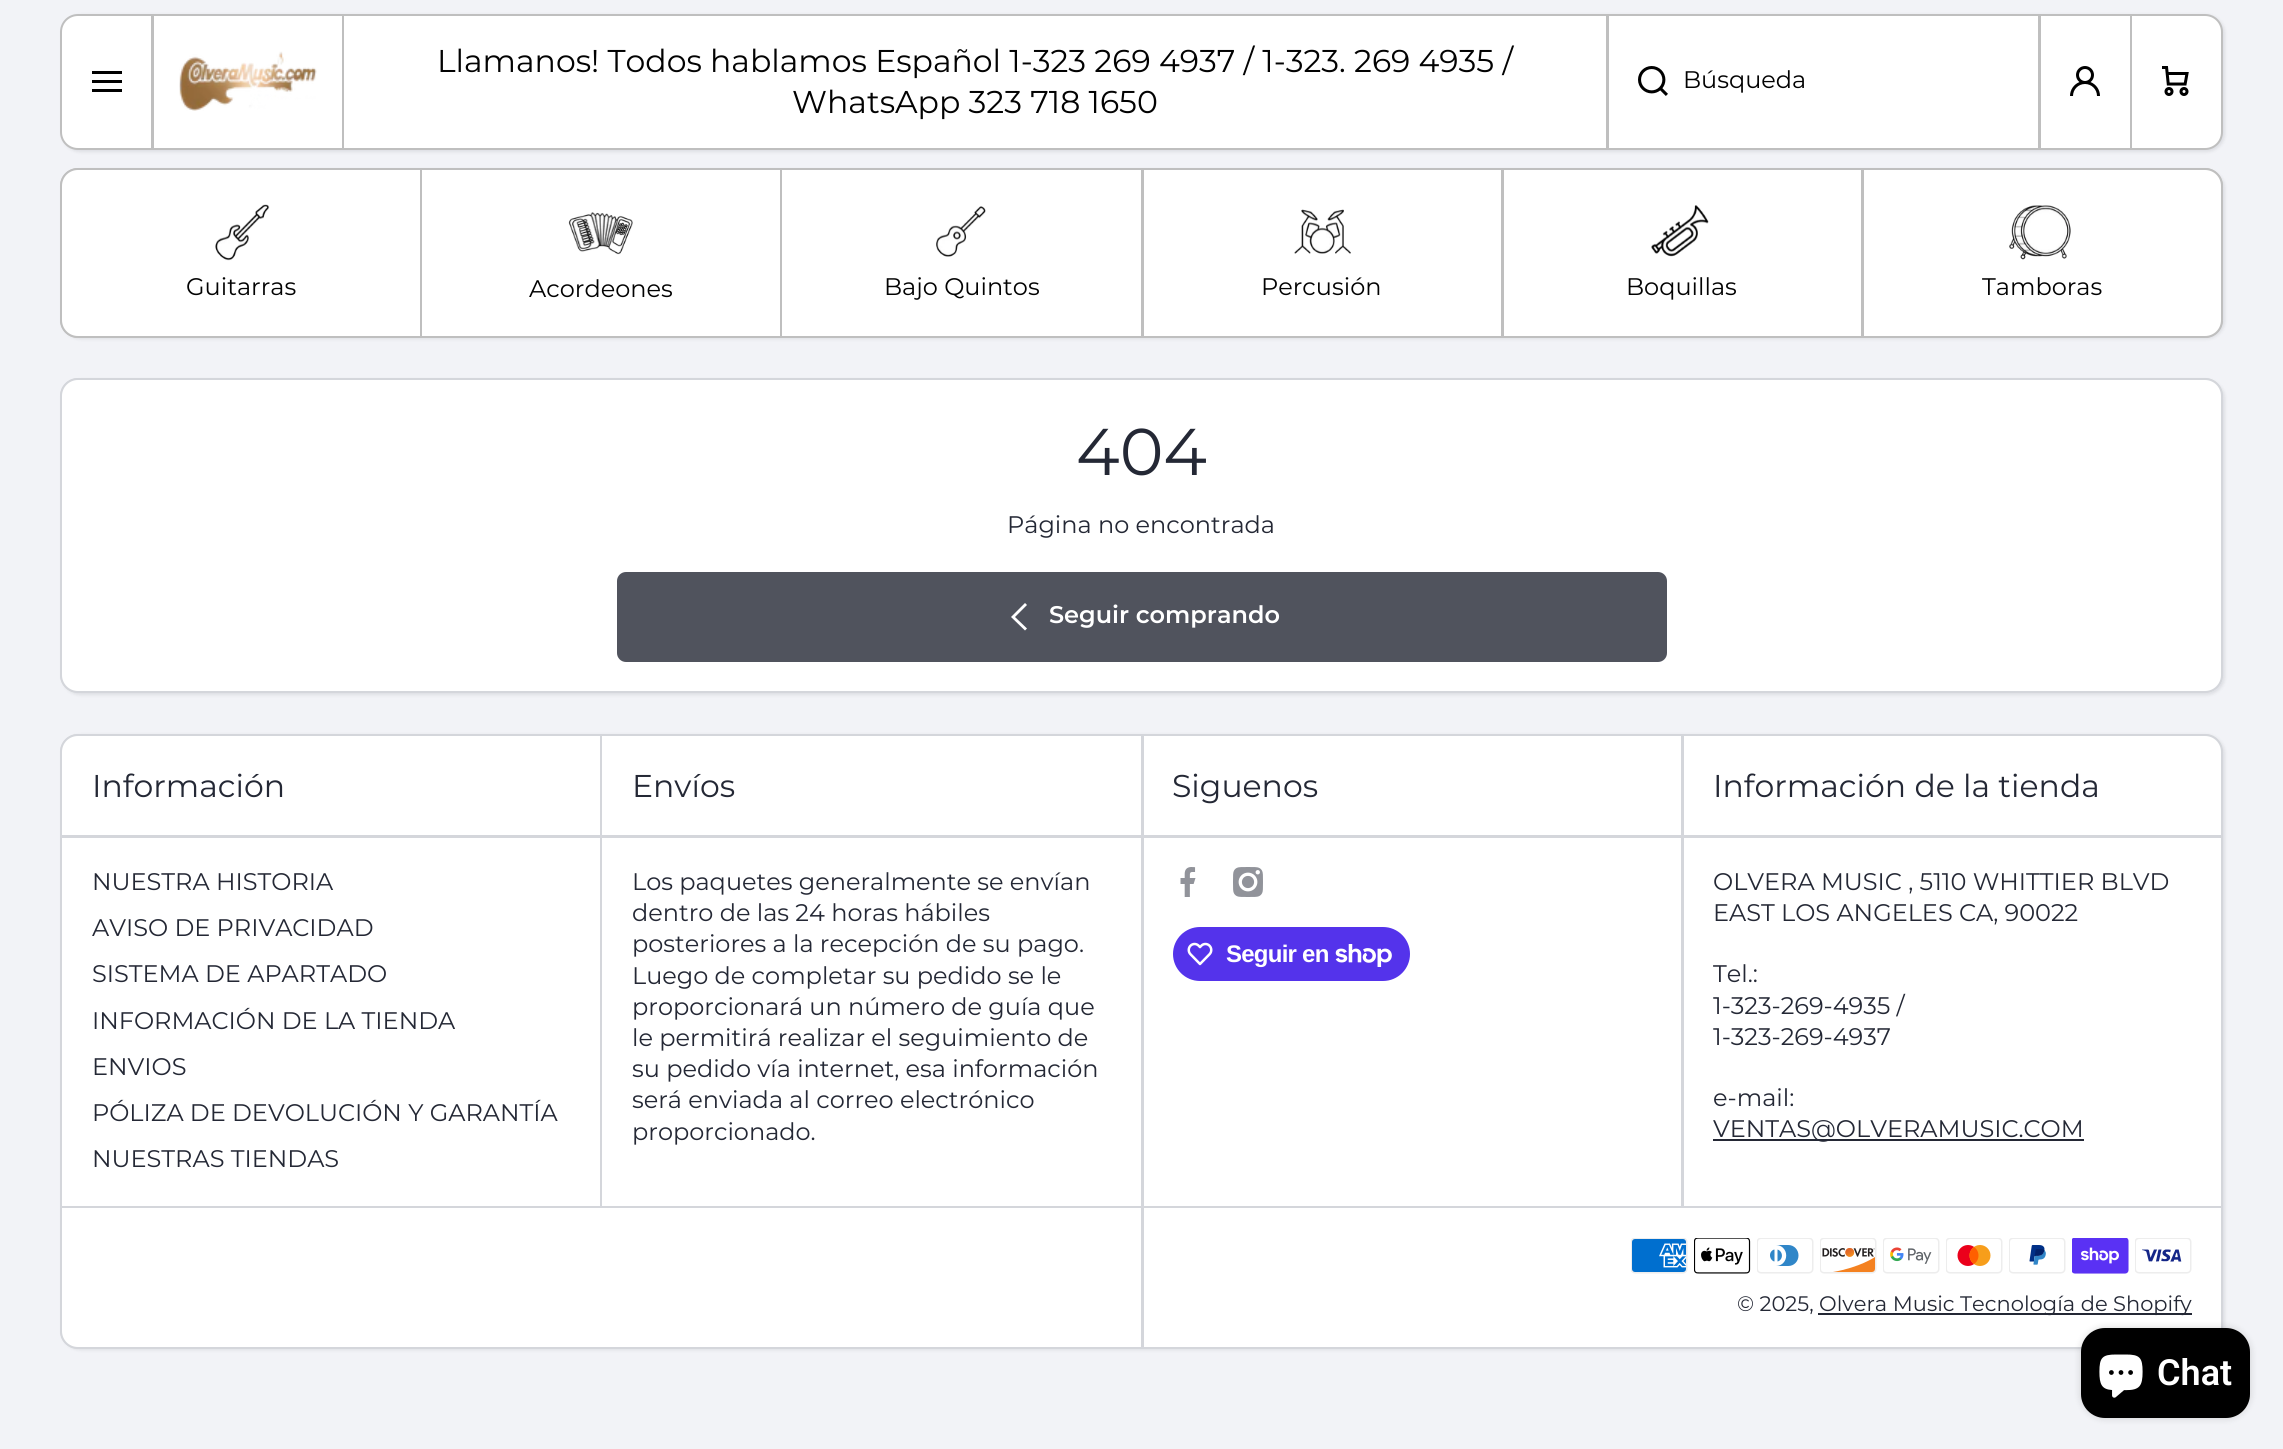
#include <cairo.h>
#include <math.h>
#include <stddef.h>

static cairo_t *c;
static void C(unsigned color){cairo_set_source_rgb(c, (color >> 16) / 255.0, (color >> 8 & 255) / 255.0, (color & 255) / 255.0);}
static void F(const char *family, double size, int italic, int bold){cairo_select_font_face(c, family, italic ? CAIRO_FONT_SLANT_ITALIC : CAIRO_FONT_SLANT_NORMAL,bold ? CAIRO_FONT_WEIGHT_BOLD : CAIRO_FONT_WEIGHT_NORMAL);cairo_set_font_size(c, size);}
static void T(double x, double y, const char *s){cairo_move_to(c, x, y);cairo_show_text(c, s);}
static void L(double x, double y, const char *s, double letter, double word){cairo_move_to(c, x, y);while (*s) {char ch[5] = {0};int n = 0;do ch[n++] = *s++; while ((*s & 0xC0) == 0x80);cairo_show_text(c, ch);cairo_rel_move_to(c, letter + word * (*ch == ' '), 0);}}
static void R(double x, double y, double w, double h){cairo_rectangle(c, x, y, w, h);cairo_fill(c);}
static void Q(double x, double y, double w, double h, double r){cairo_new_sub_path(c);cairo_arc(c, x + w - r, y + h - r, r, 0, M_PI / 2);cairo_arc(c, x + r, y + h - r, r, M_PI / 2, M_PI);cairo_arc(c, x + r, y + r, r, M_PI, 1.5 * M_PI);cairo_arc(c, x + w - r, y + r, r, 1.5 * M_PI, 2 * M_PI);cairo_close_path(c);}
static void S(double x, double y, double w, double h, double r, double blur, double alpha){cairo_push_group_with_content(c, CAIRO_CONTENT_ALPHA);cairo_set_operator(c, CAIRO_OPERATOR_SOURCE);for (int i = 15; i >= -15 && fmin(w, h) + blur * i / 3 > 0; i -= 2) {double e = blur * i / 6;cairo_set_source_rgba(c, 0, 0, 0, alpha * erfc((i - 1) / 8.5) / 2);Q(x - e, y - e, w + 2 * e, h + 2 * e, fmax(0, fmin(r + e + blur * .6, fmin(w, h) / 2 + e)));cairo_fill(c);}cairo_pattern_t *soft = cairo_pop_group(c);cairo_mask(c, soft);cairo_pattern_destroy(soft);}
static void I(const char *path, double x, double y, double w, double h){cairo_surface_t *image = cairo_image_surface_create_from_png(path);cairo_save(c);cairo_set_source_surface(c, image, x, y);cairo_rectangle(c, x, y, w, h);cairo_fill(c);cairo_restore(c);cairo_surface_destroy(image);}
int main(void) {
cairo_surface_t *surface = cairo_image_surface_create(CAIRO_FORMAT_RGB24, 2283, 1449);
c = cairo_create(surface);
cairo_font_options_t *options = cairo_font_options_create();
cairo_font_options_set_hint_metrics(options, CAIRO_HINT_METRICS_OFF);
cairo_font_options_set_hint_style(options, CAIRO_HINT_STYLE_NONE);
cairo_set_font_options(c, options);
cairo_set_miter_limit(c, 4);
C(0xf2f3f7);
cairo_paint(c);
C(0x242835);
S(62,15,2163,137,18,1.5,.1);
C(0xffffff);
cairo_new_path(c);
cairo_move_to(c,78,15);
cairo_line_to(c,152,15);
cairo_line_to(c,152,149);
cairo_line_to(c,78,149);
cairo_curve_to(c,68.5,149,61,141.5,61,132);
cairo_line_to(c,61,32);
cairo_curve_to(c,61,22.5,68.5,15,78,15);
cairo_close_path(c);
cairo_fill_preserve(c);
C(0xbfbfbf);
cairo_stroke(c);
C(0x000000);
R(92,71,30,3);
R(92,80,30,3);
R(92,89,30,3);
C(0xffffff);
cairo_rectangle(c,153,15,190,134);
cairo_fill_preserve(c);
C(0xbfbfbf);
cairo_stroke(c);
I("1.png",179,51,138,60);
C(0xffffff);
cairo_rectangle(c,343,15,1264,134);
cairo_fill_preserve(c);
C(0xbfbfbf);
cairo_stroke(c);
F("Montserrat",31.5,0,0);
C(0x020202);
T(437,72,"Llamanos! Todos hablamos Español 1-323 269 4937 / 1-323. 269 4935 /");
T(792,113,"WhatsApp 323 718 1650");
C(0xffffff);
cairo_rectangle(c,1608,15,431,134);
cairo_fill_preserve(c);
C(0xbfbfbf);
cairo_stroke(c);
I("2.png",1638,66,30,30);
F("Montserrat",24,0,0);
C(0x020202);
T(1683,88,"Búsqueda");
C(0xffffff);
cairo_rectangle(c,2040,15,91,134);
cairo_fill_preserve(c);
C(0xbfbfbf);
cairo_stroke(c);
I("3.png",2070,66,30,30);
C(0xffffff);
cairo_new_path(c);
cairo_move_to(c,2131,15);
cairo_line_to(c,2205,15);
cairo_curve_to(c,2214.5,15,2222,22.5,2222,32);
cairo_line_to(c,2222,132);
cairo_curve_to(c,2222,141.5,2214.5,149,2205,149);
cairo_line_to(c,2131,149);
cairo_close_path(c);
cairo_fill_preserve(c);
C(0xbfbfbf);
cairo_stroke(c);
I("4.png",2162,66,27,30);
C(0x242835);
S(62,170,2163,169,18,1.5,.1);
Q(61,169,2161,168,17);
C(0xffffff);
cairo_stroke(c);
Q(61,169,2161,168,17);
C(0xbfbfbf);
cairo_stroke(c);
C(0xffffff);
cairo_new_path(c);
cairo_move_to(c,78,169);
cairo_line_to(c,421,169);
cairo_line_to(c,421,337);
cairo_line_to(c,78,337);
cairo_curve_to(c,68.5,337,61,329.5,61,320);
cairo_line_to(c,61,186);
cairo_curve_to(c,61,176.5,68.5,169,78,169);
cairo_close_path(c);
cairo_fill_preserve(c);
C(0xbfbfbf);
cairo_stroke(c);
I("5.png",215,204,55,57);
C(0x020202);
T(186,295,"Guitarras");
C(0xffffff);
cairo_rectangle(c,421,169,360,168);
cairo_fill_preserve(c);
C(0xbfbfbf);
cairo_stroke(c);
I("6.png",568,212,65,43);
C(0x020202);
T(529,297,"Acordeones");
C(0xffffff);
cairo_rectangle(c,781,169,361,168);
cairo_fill_preserve(c);
C(0xbfbfbf);
cairo_stroke(c);
I("7.png",936,206,50,51);
C(0x020202);
T(884,295,"Bajo Quintos");
C(0xffffff);
cairo_rectangle(c,1143,169,359,168);
cairo_fill_preserve(c);
C(0xbfbfbf);
cairo_stroke(c);
I("8.png",1294,209,57,45);
C(0x020202);
T(1261,295,"Percusión");
C(0xffffff);
cairo_rectangle(c,1503,169,359,168);
cairo_fill_preserve(c);
C(0xbfbfbf);
cairo_stroke(c);
I("9.png",1651,205,58,52);
C(0x020202);
T(1626,295,"Boquillas");
C(0xffffff);
cairo_new_path(c);
cairo_move_to(c,1863,169);
cairo_line_to(c,2205,169);
cairo_curve_to(c,2214.5,169,2222,176.5,2222,186);
cairo_line_to(c,2222,320);
cairo_curve_to(c,2222,329.5,2214.5,337,2205,337);
cairo_line_to(c,1863,337);
cairo_close_path(c);
cairo_fill_preserve(c);
C(0xbfbfbf);
cairo_stroke(c);
I("10.png",2009,205,62,55);
C(0x020202);
T(1982,295,"Tamboras");
C(0x242835);
S(62,380,2163,315,18,1.5,.1);
Q(61,379,2161,313,17);
C(0xffffff);
cairo_stroke(c);
Q(61,379,2161,313,17);
C(0xd4d6db);
cairo_stroke(c);
C(0xffffff);
Q(61,379,2161,313,17);
cairo_fill_preserve(c);
C(0xd4d6db);
cairo_stroke(c);
F("Montserrat",66,0,0);
C(0x242835);
T(1076,475,"404");
F("Montserrat",24,0,0);
T(1007,533,"Página no encontrada");
C(0x50535d);
Q(617,572,1050,90,9);
cairo_fill(c);
C(0xffffff);
cairo_set_fill_rule(c,CAIRO_FILL_RULE_EVEN_ODD);
cairo_new_path(c);
cairo_move_to(c,1025,603);
cairo_line_to(c,1027,605);
cairo_line_to(c,1015,617);
cairo_line_to(c,1027,628.5);
cairo_line_to(c,1025,630.5);
cairo_line_to(c,1011,617);
cairo_close_path(c);
cairo_fill(c);
F("Montserrat SemiBold",24,0,0);
T(1049,623,"Seguir comprando");
C(0x242835);
S(62,735,2163,615,18,1.5,.1);
Q(61,735,2161,613,17);
C(0xffffff);
cairo_stroke(c);
Q(61,735,2161,613,17);
C(0xd4d6db);
cairo_stroke(c);
C(0xffffff);
cairo_new_path(c);
cairo_move_to(c,78,735);
cairo_line_to(c,601,735);
cairo_line_to(c,601,836);
cairo_line_to(c,61,836);
cairo_line_to(c,61,752);
cairo_curve_to(c,61,742.5,68.5,735,78,735);
cairo_close_path(c);
cairo_fill_preserve(c);
C(0xd4d6db);
cairo_stroke(c);
F("Montserrat",31.5,0,0);
C(0x242835);
T(92,797,"Información");
C(0xffffff);
cairo_rectangle(c,61,837,540,370);
cairo_fill_preserve(c);
C(0xd4d6db);
cairo_stroke(c);
C(0xffffff);
cairo_rectangle(c,601,735,541,101);
cairo_fill_preserve(c);
C(0xd4d6db);
cairo_stroke(c);
C(0x242835);
T(632,797,"Envíos");
C(0xffffff);
cairo_rectangle(c,601,837,541,370);
cairo_fill_preserve(c);
C(0xd4d6db);
cairo_stroke(c);
C(0xffffff);
cairo_rectangle(c,1143,735,539,101);
cairo_fill_preserve(c);
C(0xd4d6db);
cairo_stroke(c);
C(0x242835);
T(1172,797,"Siguenos");
C(0xffffff);
cairo_rectangle(c,1143,837,539,370);
cairo_fill_preserve(c);
C(0xd4d6db);
cairo_stroke(c);
C(0xffffff);
cairo_new_path(c);
cairo_move_to(c,1683,735);
cairo_line_to(c,2205,735);
cairo_curve_to(c,2214.5,735,2222,742.5,2222,752);
cairo_line_to(c,2222,836);
cairo_line_to(c,1683,836);
cairo_close_path(c);
cairo_fill_preserve(c);
C(0xd4d6db);
cairo_stroke(c);
C(0x242835);
T(1713,797,"Información de la tienda");
F("Montserrat",24,0,0);
T(92,890,"NUESTRA HISTORIA");
T(92,936,"AVISO DE PRIVACIDAD");
T(92,982,"SISTEMA DE APARTADO");
T(92,1029,"INFORMACIÓN DE LA TIENDA");
T(92,1075,"ENVIOS");
T(92,1121,"PÓLIZA DE DEVOLUCIÓN Y GARANTÍA");
T(92,1167,"NUESTRAS TIENDAS");
T(632,890,"Los paquetes generalmente se envían");
T(632,921,"dentro de las 24 horas hábiles");
T(632,952,"posteriores a la recepción de su pago.");
T(632,984,"Luego de completar su pedido se le");
T(632,1015,"proporcionará un número de guía que");
T(632,1046,"le permitirá realizar el seguimiento de");
T(632,1077,"su pedido vía internet, esa información");
T(632,1108,"será enviada al correo electrónico");
T(632,1140,"proporcionado.");
I("11.png",1180,867,16,30);
I("12.png",1233,867,30,30);
C(0x5433eb);
Q(1173,927,237,54,27);
cairo_fill(c);
I("13.png",1187,942,26,24);
F("Liberation Sans",24,0,1);
C(0xffffff);
L(1226,962,"Seguir en",-.75,0);
I("14.png",1335,944,57,23);
cairo_rectangle(c,1683,837,539,370);
cairo_fill_preserve(c);
C(0xd4d6db);
cairo_stroke(c);
F("Montserrat",24,0,0);
C(0x242835);
T(1713,890,"OLVERA MUSIC , 5110 WHITTIER BLVD");
T(1713,921,"EAST LOS ANGELES CA, 90022");
T(1713,982,"Tel.:");
T(1713,1014,"1-323-269-4935 /");
T(1713,1045,"1-323-269-4937");
T(1713,1106,"e-mail:");
R(1713,1139,371,2);
T(1713,1137,"VENTAS@OLVERAMUSIC.COM");
C(0xffffff);
cairo_new_path(c);
cairo_move_to(c,61,1207);
cairo_line_to(c,1142,1207);
cairo_line_to(c,1142,1348);
cairo_line_to(c,78,1348);
cairo_curve_to(c,68.5,1348,61,1340.5,61,1331);
cairo_close_path(c);
cairo_fill_preserve(c);
C(0xd4d6db);
cairo_stroke(c);
C(0xffffff);
cairo_rectangle(c,1143,1207,1079,141);
cairo_fill_preserve(c);
C(0xd4d6db);
cairo_stroke(c);
I("15.png",1631,1238,57,36);
I("16.png",1694,1238,57,36);
I("17.png",1757,1238,57,36);
I("18.png",1820,1238,57,36);
I("19.png",1883,1238,57,36);
I("20.png",1946,1238,57,36);
I("21.png",2009,1238,57,36);
I("22.png",2072,1238,57,36);
I("23.png",2135,1238,57,36);
F("Montserrat",21,0,0);
C(0x242835);
T(1737,1311,"© 2025, Olvera Music");
R(1818,1313,374,2);
T(1960,1311,"Tecnología de Shopify");
C(0x000000);
S(2081,1328,169,90,24,4,.15);
C(0x000000);
Q(2081,1328,169,90,24);
cairo_fill(c);
I("24.png",2099,1354,44,44);
F("Roboto SemiBold",36,0,0);
C(0xffffff);
T(2157,1385,"Chat");
cairo_surface_write_to_png(surface, "o.png");
cairo_font_options_destroy(options);
cairo_destroy(c);
cairo_surface_destroy(surface);
return 0;
}
